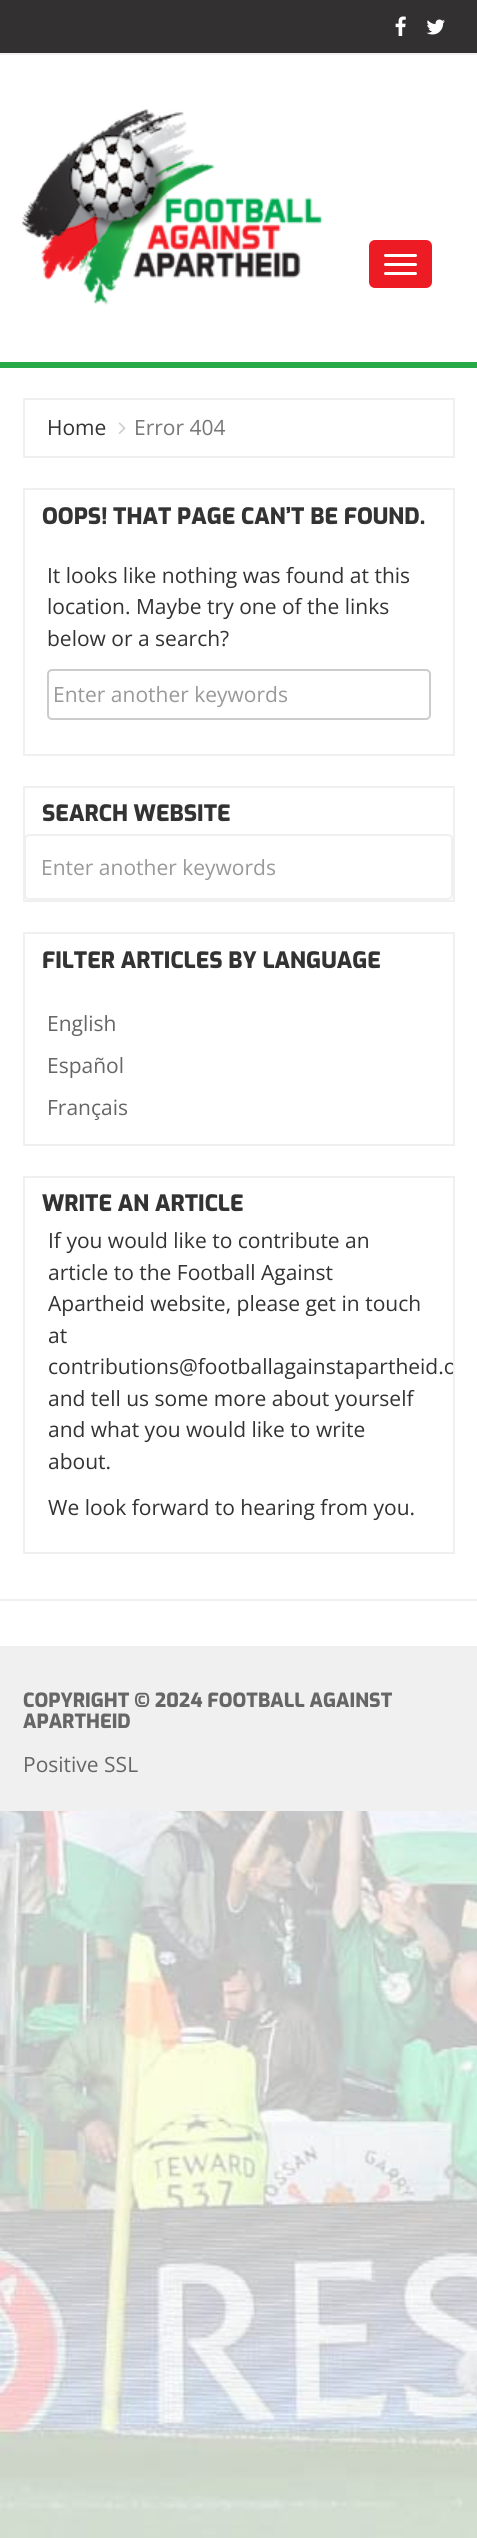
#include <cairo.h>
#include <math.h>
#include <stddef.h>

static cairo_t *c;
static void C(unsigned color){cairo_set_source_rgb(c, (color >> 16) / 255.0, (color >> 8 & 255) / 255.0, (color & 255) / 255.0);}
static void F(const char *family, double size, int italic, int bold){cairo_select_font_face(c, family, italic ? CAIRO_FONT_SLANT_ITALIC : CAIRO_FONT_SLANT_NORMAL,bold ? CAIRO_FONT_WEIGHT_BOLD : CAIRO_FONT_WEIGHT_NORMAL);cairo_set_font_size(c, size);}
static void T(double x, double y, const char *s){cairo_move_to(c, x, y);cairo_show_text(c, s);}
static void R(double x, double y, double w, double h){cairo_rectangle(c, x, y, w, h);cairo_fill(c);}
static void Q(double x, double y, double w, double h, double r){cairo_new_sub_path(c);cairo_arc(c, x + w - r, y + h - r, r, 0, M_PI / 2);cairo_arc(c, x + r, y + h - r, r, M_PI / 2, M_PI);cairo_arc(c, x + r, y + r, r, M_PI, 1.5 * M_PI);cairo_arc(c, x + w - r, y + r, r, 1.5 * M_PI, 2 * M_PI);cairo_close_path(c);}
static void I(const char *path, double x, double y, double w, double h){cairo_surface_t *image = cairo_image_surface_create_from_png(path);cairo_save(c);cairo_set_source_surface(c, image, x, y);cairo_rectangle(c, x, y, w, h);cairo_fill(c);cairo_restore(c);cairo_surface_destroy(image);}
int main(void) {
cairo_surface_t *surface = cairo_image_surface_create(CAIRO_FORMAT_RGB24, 477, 2538);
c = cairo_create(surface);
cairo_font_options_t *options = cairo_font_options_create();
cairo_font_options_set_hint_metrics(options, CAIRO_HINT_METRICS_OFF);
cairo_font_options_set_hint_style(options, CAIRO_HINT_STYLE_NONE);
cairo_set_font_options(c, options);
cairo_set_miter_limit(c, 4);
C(0xffffff);
cairo_paint(c);
I("1.png",0,1811,477,727);
C(0x323031);
R(0,0,477,53);
C(0xf0f0f0);
R(0,53,477,2);
I("2.png",395,16,11,20);
I("3.png",426,19,19,16);
I("4.png",22,109,301,196);
C(0x29aa48);
R(0,362,477,6);
C(0xed1b24);
Q(369,240,63,48,6);
cairo_fill(c);
C(0xffffff);
Q(384,254,33,3,1.5);
cairo_fill(c);
Q(384,263,33,3,1.5);
cairo_fill(c);
Q(384,272,33,3,1.5);
cairo_fill(c);
cairo_rectangle(c,24,399,430,58);
C(0xf0f0f0);
cairo_stroke(c);
F("Open Sans",21,0,0);
C(0x333333);
T(47,435,"Home");
I("5.png",118,422,8,12);
C(0x777777);
T(134,435,"Error 404");
cairo_rectangle(c,24,489,430,266);
C(0xf0f0f0);
cairo_stroke(c);
F("Exo ExtraBold",22.5,0,0);
C(0x333333);
T(42,524,"OOPS! THAT PAGE CAN’T BE FOUND.");
F("Open Sans",21,0,0);
T(47,583,"It looks like nothing was found at this");
T(47,614,"location. Maybe try one of the links");
T(47,646,"below or a search?");
Q(48,670,382,49,4);
C(0xcccccc);
cairo_stroke(c);
C(0x999999);
T(53,702,"Enter another keywords");
cairo_rectangle(c,24,787,430,114);
C(0xf0f0f0);
cairo_stroke(c);
F("Exo ExtraBold",22.5,0,0);
C(0x333333);
T(42,821,"SEARCH WEBSITE");
C(0xffffff);
Q(25,835,427,64,4);
cairo_fill_preserve(c);
C(0xf0f0f0);
cairo_stroke(c);
F("Open Sans",21,0,0);
C(0x999999);
T(41,875,"Enter another keywords");
cairo_rectangle(c,24,933,430,212);
C(0xf0f0f0);
cairo_stroke(c);
F("Exo ExtraBold",22.5,0,0);
C(0x333333);
T(42,968,"FILTER ARTICLES BY LANGUAGE");
F("Open Sans",21,0,0);
C(0x666666);
T(47,1031,"English");
T(47,1073,"Español");
T(47,1115,"Français");
cairo_rectangle(c,24,1177,430,376);
C(0xf0f0f0);
cairo_stroke(c);
F("Exo ExtraBold",22.5,0,0);
C(0x333333);
T(42,1211,"WRITE AN ARTICLE");
F("Open Sans",21,0,0);
T(48,1248,"If you would like to contribute an");
T(48,1280,"article to the Football Against");
T(48,1311,"Apartheid website, please get in touch");
T(48,1343,"at");
cairo_save(c);
cairo_rectangle(c,24,1178,429,375);
cairo_clip(c);
T(48,1374,"contributions@footballagainstapartheid.o");
cairo_restore(c);
T(48,1406,"and tell us some more about yourself");
T(48,1437,"and what you would like to write");
T(48,1469,"about.");
T(48,1515,"We look forward to hearing from you.");
C(0xf0f0f0);
R(0,1599,477,2);
R(0,1646,477,165);
F("Exo ExtraBold",19.5,0,0);
C(0x666666);
T(23,1707,"COPYRIGHT © 2024 FOOTBALL AGAINST");
T(23,1728,"APARTHEID");
F("Open Sans",21,0,0);
T(23,1772,"Positive SSL");
cairo_surface_write_to_png(surface, "o.png");
cairo_font_options_destroy(options);
cairo_destroy(c);
cairo_surface_destroy(surface);
return 0;
}
